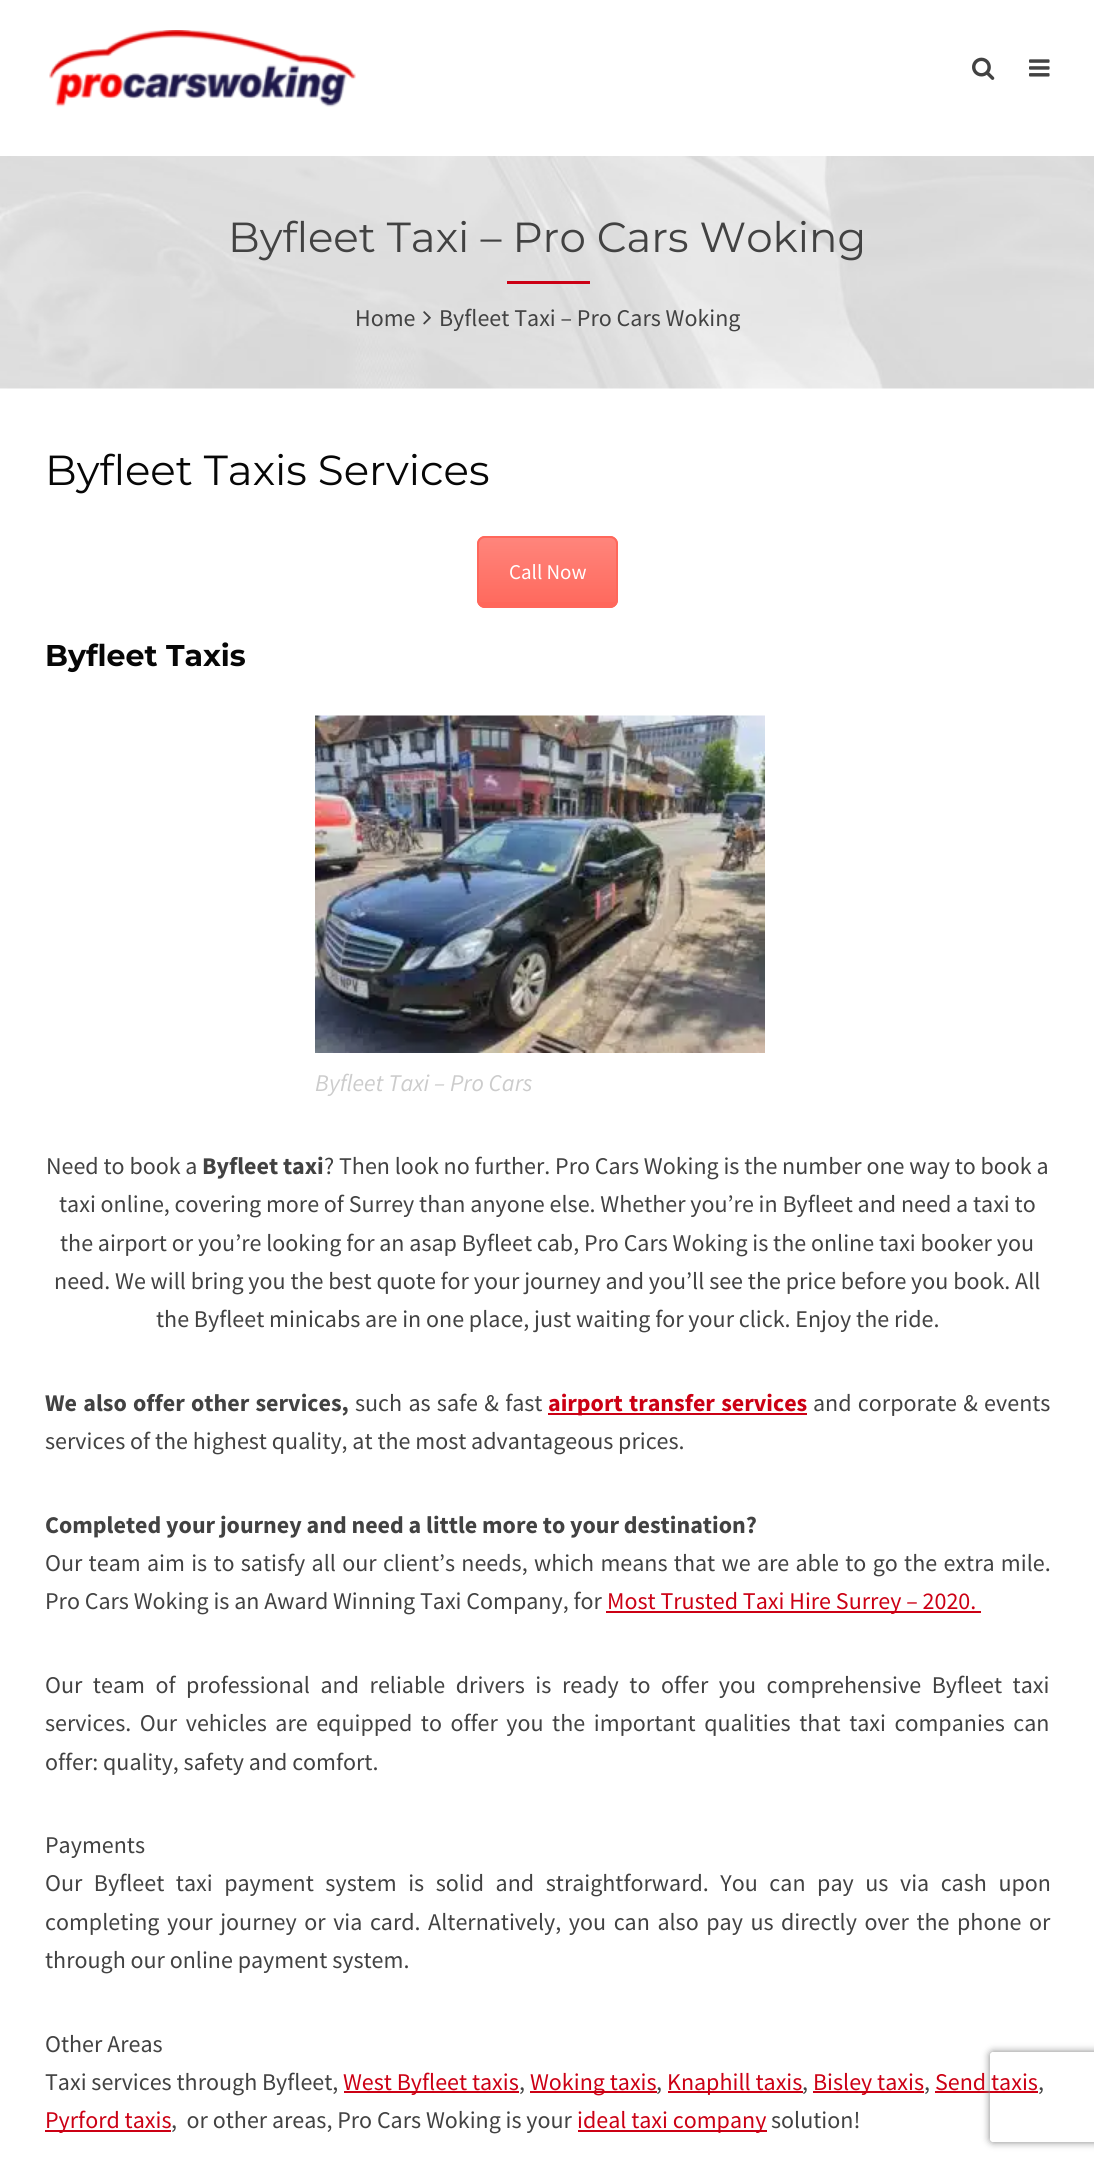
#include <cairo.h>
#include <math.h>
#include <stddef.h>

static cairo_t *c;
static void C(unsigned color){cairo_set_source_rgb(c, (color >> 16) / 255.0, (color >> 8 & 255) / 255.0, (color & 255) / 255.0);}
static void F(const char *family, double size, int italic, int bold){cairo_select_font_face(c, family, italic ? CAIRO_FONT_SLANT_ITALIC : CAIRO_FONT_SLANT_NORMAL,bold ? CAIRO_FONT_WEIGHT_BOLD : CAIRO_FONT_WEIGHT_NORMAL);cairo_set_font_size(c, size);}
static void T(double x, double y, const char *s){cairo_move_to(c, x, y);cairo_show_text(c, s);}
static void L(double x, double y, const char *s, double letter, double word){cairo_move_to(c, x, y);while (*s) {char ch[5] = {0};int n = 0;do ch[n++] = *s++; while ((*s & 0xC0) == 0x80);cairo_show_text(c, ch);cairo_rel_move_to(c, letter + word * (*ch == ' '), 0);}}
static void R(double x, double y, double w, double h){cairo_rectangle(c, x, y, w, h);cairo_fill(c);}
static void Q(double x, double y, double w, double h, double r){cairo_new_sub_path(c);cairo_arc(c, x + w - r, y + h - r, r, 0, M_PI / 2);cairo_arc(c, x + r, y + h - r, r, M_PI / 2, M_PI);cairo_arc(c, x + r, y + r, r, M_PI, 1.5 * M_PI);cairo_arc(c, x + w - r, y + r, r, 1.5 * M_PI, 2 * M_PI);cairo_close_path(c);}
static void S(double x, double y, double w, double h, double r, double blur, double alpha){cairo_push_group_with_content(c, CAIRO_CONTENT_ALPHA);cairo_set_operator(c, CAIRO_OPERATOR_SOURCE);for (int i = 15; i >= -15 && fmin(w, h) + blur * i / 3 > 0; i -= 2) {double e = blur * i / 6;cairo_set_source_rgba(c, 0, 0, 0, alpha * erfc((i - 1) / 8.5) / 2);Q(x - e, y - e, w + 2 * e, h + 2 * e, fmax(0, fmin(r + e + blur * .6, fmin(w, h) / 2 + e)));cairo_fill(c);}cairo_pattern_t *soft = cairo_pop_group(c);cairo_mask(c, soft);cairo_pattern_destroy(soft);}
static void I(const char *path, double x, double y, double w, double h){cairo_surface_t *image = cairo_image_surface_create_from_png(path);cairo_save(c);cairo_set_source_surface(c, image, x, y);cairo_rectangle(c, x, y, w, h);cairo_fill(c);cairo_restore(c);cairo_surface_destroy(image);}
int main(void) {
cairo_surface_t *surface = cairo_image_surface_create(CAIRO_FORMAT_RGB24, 1094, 2163);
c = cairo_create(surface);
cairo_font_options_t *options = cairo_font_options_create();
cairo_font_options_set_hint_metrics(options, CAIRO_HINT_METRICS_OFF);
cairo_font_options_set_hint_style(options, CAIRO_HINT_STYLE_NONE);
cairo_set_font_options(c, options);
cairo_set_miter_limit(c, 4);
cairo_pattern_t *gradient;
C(0xffffff);
cairo_paint(c);
I("1.png",49,30,307,77);
I("2.png",972,57,23,23);
I("3.png",1029,59,21,18);
I("4.png",0,156,1094,233);
F("Montserrat",42,0,0);
C(0x424242);
T(228,252,"Byfleet Taxi – Pro Cars Woking");
C(0xcc0014);
R(507,281,83,3);
F("Source Sans Pro",24,0,0);
C(0x424242);
T(355,326,"Home");
I("5.png",423,311,8,14);
T(439,326,"Byfleet Taxi – Pro Cars Woking");
F("Montserrat",42,0,0);
C(0x070707);
T(45,485,"Byfleet Taxis Services");
C(0xff675b);
Q(477,536,141,72,8);
cairo_fill(c);
cairo_save(c);
Q(477,536,141,72,8);
cairo_clip(c);
gradient = cairo_pattern_create_linear(548,537,548,606);
cairo_pattern_add_color_stop_rgba(gradient,0,1,1,1,.2);
cairo_pattern_add_color_stop_rgba(gradient,1,1,1,1,.01);
cairo_set_source(c,gradient);
cairo_pattern_destroy(gradient);
R(477,537,141,65);
cairo_restore(c);
Q(478,537,139,70,7);
cairo_stroke(c);
F("Source Sans Pro",21,0,0);
C(0xffffff);
T(509,579,"Call Now");
F("Montserrat",30,0,1);
C(0x070707);
T(45,666,"Byfleet Taxis");
I("6.png",315,715,450,338);
F("Source Sans Pro",24,1,0);
C(0xcccccc);
T(315,1091,"Byfleet Taxi – Pro Cars");
F("Source Sans Pro",24,0,0);
C(0x424242);
T(46,1174,"Need to book a");
F("Source Sans Pro",24,0,1);
T(202,1174,"Byfleet taxi");
F("Source Sans Pro",24,0,0);
T(324,1174,"? Then look no further. Pro Cars Woking is the number one way to book a");
T(59,1212,"taxi online, covering more of Surrey than anyone else. Whether you’re in Byfleet and need a taxi to");
T(60,1251,"the airport or you’re looking for an asap Byfleet cab, Pro Cars Woking is the online taxi booker you");
T(54,1289,"need. We will bring you the best quote for your journey and you’ll see the price before you book. All");
T(156,1327,"the Byfleet minicabs are in one place, just waiting for your click. Enjoy the ride.");
F("Source Sans Pro",24,0,1);
L(45,1411,"We also offer other services,",0,1.5);
F("Source Sans Pro",24,0,0);
L(355,1411,"such as safe & fast",0,1.5);
C(0xcc0014);
R(548,1413,259,2);
F("Source Sans Pro",24,0,1);
L(548,1411,"airport transfer services",0,1.5);
F("Source Sans Pro",24,0,0);
C(0x424242);
L(813,1411,"and corporate & events",0,1.5);
T(45,1449,"services of the highest quality, at the most advantageous prices.");
F("Source Sans Pro",24,0,1);
T(45,1533,"Completed your journey and need a little more to your destination?");
F("Source Sans Pro",24,0,0);
L(45,1571,"Our team aim is to satisfy all our client’s needs, which means that we are able to go the extra mile.",0,1.5);
T(45,1609,"Pro Cars Woking is an Award Winning Taxi Company, for");
C(0xcc0014);
R(606,1611,375,2);
T(607,1609,"Most Trusted Taxi Hire Surrey – 2020.");
C(0x424242);
L(45,1693,"Our team of professional and reliable drivers is ready to offer you comprehensive Byfleet taxi",0,5.75);
L(45,1731,"services. Our vehicles are equipped to offer you the important qualities that taxi companies can",0,3.75);
T(45,1770,"offer: quality, safety and comfort.");
T(45,1853,"Payments");
L(45,1891,"Our Byfleet taxi payment system is solid and straightforward. You can pay us via cash upon",0,6.75);
L(45,1930,"completing your journey or via card. Alternatively, you can also pay us directly over the phone or",0,2.75);
T(45,1968,"through our online payment system.");
T(45,2052,"Other Areas");
T(45,2090,"Taxi services through Byfleet,");
C(0xcc0014);
R(344,2091,175,2);
T(343,2090,"West Byfleet taxis");
C(0x424242);
T(519,2090,",");
C(0xcc0014);
R(530,2091,127,2);
T(530,2090,"Woking taxis");
C(0x424242);
T(656,2090,",");
C(0xcc0014);
R(668,2091,135,2);
T(667,2090,"Knaphill taxis");
C(0x424242);
T(802,2090,",");
C(0xcc0014);
R(813,2091,111,2);
T(813,2090,"Bisley taxis");
C(0x424242);
T(924,2090,",");
C(0xcc0014);
T(935,2090,"Send taxis");
R(935,2091,103,2);
C(0x424242);
T(1038,2090,",");
C(0xcc0014);
R(45,2130,126,2);
T(45,2128,"Pyrford taxis");
C(0x424242);
T(171,2128,",  or other areas, Pro Cars Woking is your");
C(0xcc0014);
R(578,2130,189,2);
T(577,2128,"ideal taxi company");
C(0x424242);
T(771,2128,"solution!");
cairo_save(c);
cairo_set_fill_rule(c,CAIRO_FILL_RULE_EVEN_ODD);
cairo_new_path(c);
cairo_move_to(c,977,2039);
cairo_line_to(c,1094,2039);
cairo_line_to(c,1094,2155);
cairo_line_to(c,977,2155);
cairo_close_path(c);
cairo_move_to(c,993,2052);
cairo_line_to(c,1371,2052);
cairo_curve_to(c,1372.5,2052,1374,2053.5,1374,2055);
cairo_line_to(c,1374,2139);
cairo_curve_to(c,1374,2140.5,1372.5,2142,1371,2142);
cairo_line_to(c,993,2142);
cairo_curve_to(c,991.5,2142,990,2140.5,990,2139);
cairo_line_to(c,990,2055);
cairo_curve_to(c,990,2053.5,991.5,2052,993,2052);
cairo_close_path(c);
cairo_clip(c);
C(0x808080);
S(990,2052,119,90,3,4,1);
cairo_restore(c);
cairo_surface_write_to_png(surface, "o.png");
cairo_font_options_destroy(options);
cairo_destroy(c);
cairo_surface_destroy(surface);
return 0;
}
